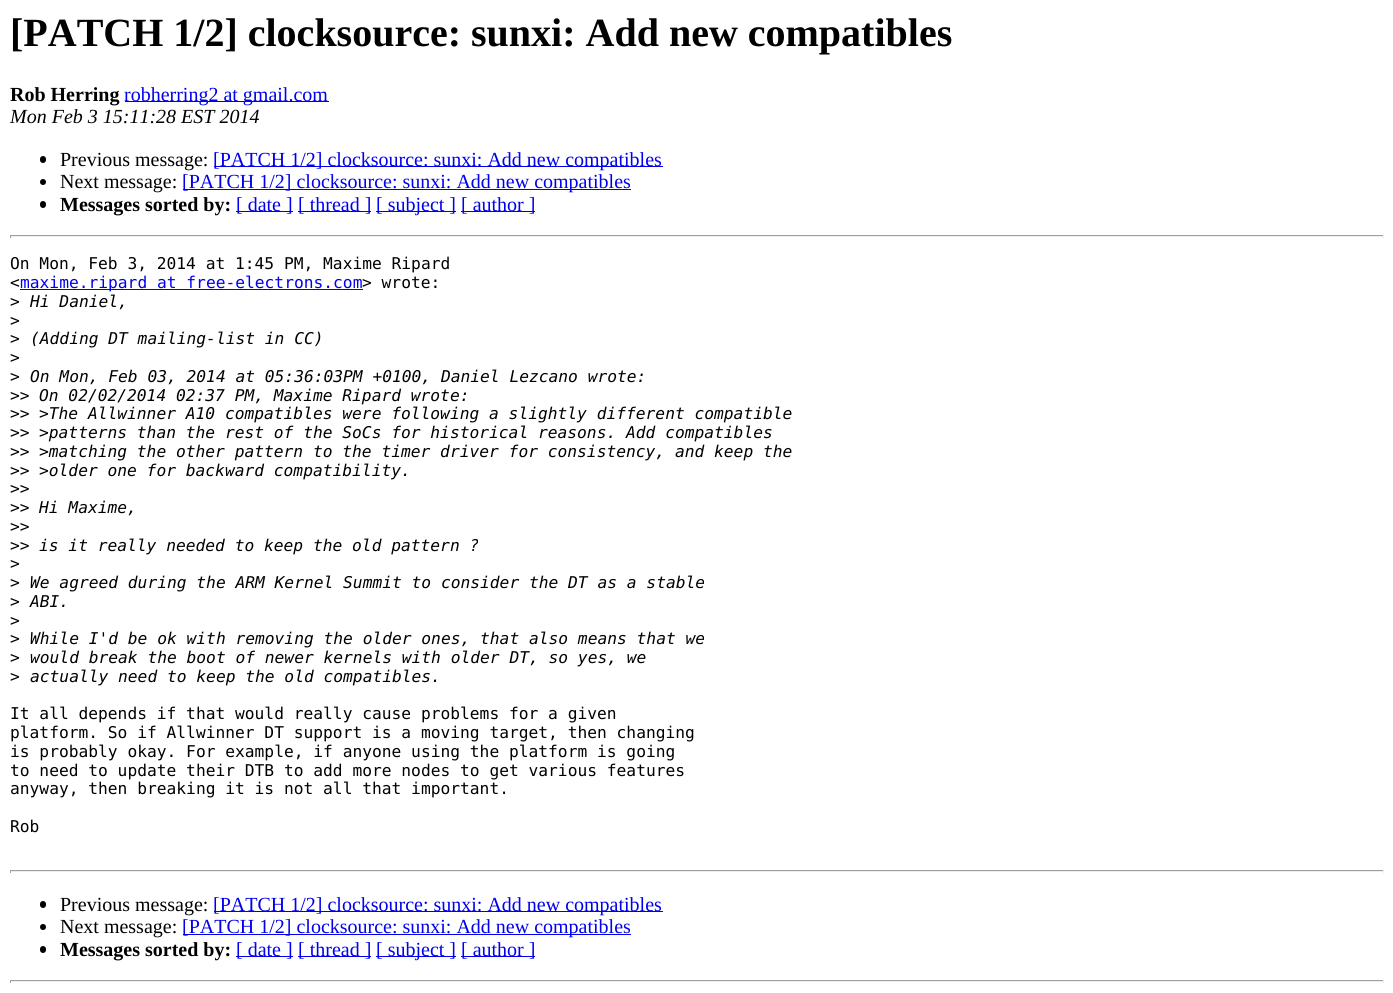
#include <cairo.h>
#include <math.h>
#include <stddef.h>

static cairo_t *c;
static void C(unsigned color){cairo_set_source_rgb(c, (color >> 16) / 255.0, (color >> 8 & 255) / 255.0, (color & 255) / 255.0);}
static void F(const char *family, double size, int italic, int bold){cairo_select_font_face(c, family, italic ? CAIRO_FONT_SLANT_ITALIC : CAIRO_FONT_SLANT_NORMAL,bold ? CAIRO_FONT_WEIGHT_BOLD : CAIRO_FONT_WEIGHT_NORMAL);cairo_set_font_size(c, size);}
static void T(double x, double y, const char *s){cairo_move_to(c, x, y);cairo_show_text(c, s);}
static void R(double x, double y, double w, double h){cairo_rectangle(c, x, y, w, h);cairo_fill(c);}
static void Q(double x, double y, double w, double h, double r){cairo_new_sub_path(c);cairo_arc(c, x + w - r, y + h - r, r, 0, M_PI / 2);cairo_arc(c, x + r, y + h - r, r, M_PI / 2, M_PI);cairo_arc(c, x + r, y + r, r, M_PI, 1.5 * M_PI);cairo_arc(c, x + w - r, y + r, r, 1.5 * M_PI, 2 * M_PI);cairo_close_path(c);}
int main(void) {
cairo_surface_t *surface = cairo_image_surface_create(CAIRO_FORMAT_RGB24, 1393, 993);
c = cairo_create(surface);
cairo_font_options_t *options = cairo_font_options_create();
cairo_font_options_set_hint_metrics(options, CAIRO_HINT_METRICS_OFF);
cairo_font_options_set_hint_style(options, CAIRO_HINT_STYLE_NONE);
cairo_set_font_options(c, options);
cairo_set_miter_limit(c, 4);
C(0xffffff);
cairo_paint(c);
F("Liberation Serif",40,0,1);
C(0x000000);
T(10,46,"[PATCH 1/2] clocksource: sunxi: Add new compatibles");
F("Liberation Serif",20,0,1);
T(10,101,"Rob Herring");
C(0x0000ee);
R(125,101,204,1);
F("Liberation Serif",20,0,0);
T(124,101,"robherring2 at gmail.com");
F("Liberation Serif",20,1,0);
C(0x000000);
T(10,123,"Mon Feb 3 15:11:28 EST 2014");
Q(40,156,6,7,3);
cairo_fill(c);
F("Liberation Serif",20,0,0);
T(60,166,"Previous message:");
C(0x0000ee);
R(214,166,449,1);
T(213,166,"[PATCH 1/2] clocksource: sunxi: Add new compatibles");
C(0x000000);
cairo_new_path(c);
cairo_arc(c,43,182,3,0,2 * M_PI);
cairo_fill(c);
T(60,188,"Next message:");
C(0x0000ee);
R(183,189,448,1);
T(182,188,"[PATCH 1/2] clocksource: sunxi: Add new compatibles");
C(0x000000);
Q(40,201,6,7,3);
cairo_fill(c);
F("Liberation Serif",20,0,1);
T(60,211,"Messages sorted by:");
C(0x0000ee);
R(236,211,57,1);
F("Liberation Serif",20,0,0);
T(236,211,"[ date ]");
R(298,211,73,1);
T(298,211,"[ thread ]");
R(376,211,80,1);
T(376,211,"[ subject ]");
R(461,211,74,1);
T(461,211,"[ author ]");
C(0x9f9f9f);
R(10,235,1374,1);
C(0xeeeeee);
R(1383,235,1,3);
R(10,236,1374,1);
C(0x9f9f9f);
R(10,235,1,3);
F("DejaVu Sans Mono",16.25,0,0);
C(0x000000);
T(10,269,"On Mon, Feb 3, 2014 at 1:45 PM, Maxime Ripard");
T(10,288,"<");
C(0x0000ee);
R(20,289,343,1);
T(20,288,"maxime.ripard at free-electrons.com");
C(0x000000);
T(362,288,"> wrote:");
T(10,307,">");
F("DejaVu Sans Mono",16.25,1,0);
T(30,307,"Hi Daniel,");
F("DejaVu Sans Mono",16.25,0,0);
T(10,326,">");
T(10,344,">");
F("DejaVu Sans Mono",16.25,1,0);
T(30,344,"(Adding DT mailing-list in CC)");
F("DejaVu Sans Mono",16.25,0,0);
T(10,363,">");
T(10,382,">");
F("DejaVu Sans Mono",16.25,1,0);
T(30,382,"On Mon, Feb 03, 2014 at 05:36:03PM +0100, Daniel Lezcano wrote:");
F("DejaVu Sans Mono",16.25,0,0);
T(10,401,">>");
F("DejaVu Sans Mono",16.25,1,0);
T(39,401,"On 02/02/2014 02:37 PM, Maxime Ripard wrote:");
F("DejaVu Sans Mono",16.25,0,0);
T(10,419,">>");
F("DejaVu Sans Mono",16.25,1,0);
T(39,419,">The Allwinner A10 compatibles were following a slightly different compatible");
F("DejaVu Sans Mono",16.25,0,0);
T(10,438,">>");
F("DejaVu Sans Mono",16.25,1,0);
T(39,438,">patterns than the rest of the SoCs for historical reasons. Add compatibles");
F("DejaVu Sans Mono",16.25,0,0);
T(10,457,">>");
F("DejaVu Sans Mono",16.25,1,0);
T(39,457,">matching the other pattern to the timer driver for consistency, and keep the");
F("DejaVu Sans Mono",16.25,0,0);
T(10,476,">>");
F("DejaVu Sans Mono",16.25,1,0);
T(39,476,">older one for backward compatibility.");
F("DejaVu Sans Mono",16.25,0,0);
T(10,494,">>");
T(10,513,">>");
F("DejaVu Sans Mono",16.25,1,0);
T(39,513,"Hi Maxime,");
F("DejaVu Sans Mono",16.25,0,0);
T(10,532,">>");
T(10,551,">>");
F("DejaVu Sans Mono",16.25,1,0);
T(39,551,"is it really needed to keep the old pattern ?");
F("DejaVu Sans Mono",16.25,0,0);
T(10,569,">");
T(10,588,">");
F("DejaVu Sans Mono",16.25,1,0);
T(30,588,"We agreed during the ARM Kernel Summit to consider the DT as a stable");
F("DejaVu Sans Mono",16.25,0,0);
T(10,607,">");
F("DejaVu Sans Mono",16.25,1,0);
T(30,607,"ABI.");
F("DejaVu Sans Mono",16.25,0,0);
T(10,626,">");
T(10,644,">");
F("DejaVu Sans Mono",16.25,1,0);
T(30,644,"While I'd be ok with removing the older ones, that also means that we");
F("DejaVu Sans Mono",16.25,0,0);
T(10,663,">");
F("DejaVu Sans Mono",16.25,1,0);
T(30,663,"would break the boot of newer kernels with older DT, so yes, we");
F("DejaVu Sans Mono",16.25,0,0);
T(10,682,">");
F("DejaVu Sans Mono",16.25,1,0);
T(30,682,"actually need to keep the old compatibles.");
F("DejaVu Sans Mono",16.25,0,0);
T(10,719,"It all depends if that would really cause problems for a given");
T(10,738,"platform. So if Allwinner DT support is a moving target, then changing");
T(10,757,"is probably okay. For example, if anyone using the platform is going");
T(10,776,"to need to update their DTB to add more nodes to get various features");
T(10,794,"anyway, then breaking it is not all that important.");
T(10,832,"Rob");
C(0x9f9f9f);
R(10,870,1374,1);
C(0xeeeeee);
R(1383,870,1,3);
R(10,871,1374,1);
C(0x9f9f9f);
R(10,870,1,3);
C(0x000000);
Q(40,901,6,7,3);
cairo_fill(c);
F("Liberation Serif",20,0,0);
T(60,911,"Previous message:");
C(0x0000ee);
R(214,911,449,1);
T(213,911,"[PATCH 1/2] clocksource: sunxi: Add new compatibles");
C(0x000000);
cairo_new_path(c);
cairo_arc(c,43,927,3,0,2 * M_PI);
cairo_fill(c);
T(60,933,"Next message:");
C(0x0000ee);
R(183,934,448,1);
T(182,933,"[PATCH 1/2] clocksource: sunxi: Add new compatibles");
C(0x000000);
Q(40,946,6,7,3);
cairo_fill(c);
F("Liberation Serif",20,0,1);
T(60,956,"Messages sorted by:");
C(0x0000ee);
R(236,956,57,1);
F("Liberation Serif",20,0,0);
T(236,956,"[ date ]");
R(298,956,73,1);
T(298,956,"[ thread ]");
R(376,956,80,1);
T(376,956,"[ subject ]");
R(461,956,74,1);
T(461,956,"[ author ]");
C(0x9f9f9f);
R(10,980,1374,1);
C(0xeeeeee);
R(1383,980,1,3);
R(10,981,1374,1);
C(0x9f9f9f);
R(10,980,1,3);
cairo_surface_write_to_png(surface, "o.png");
cairo_font_options_destroy(options);
cairo_destroy(c);
cairo_surface_destroy(surface);
return 0;
}
